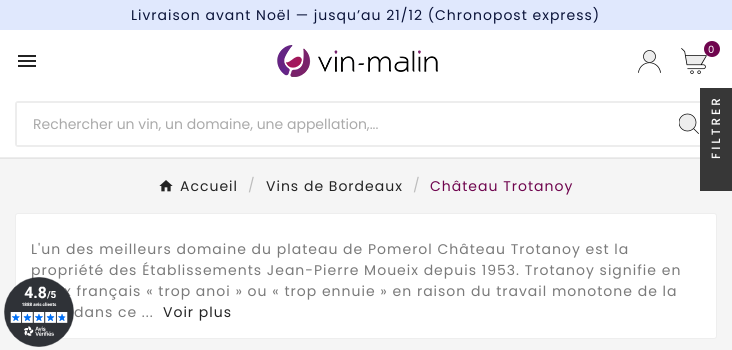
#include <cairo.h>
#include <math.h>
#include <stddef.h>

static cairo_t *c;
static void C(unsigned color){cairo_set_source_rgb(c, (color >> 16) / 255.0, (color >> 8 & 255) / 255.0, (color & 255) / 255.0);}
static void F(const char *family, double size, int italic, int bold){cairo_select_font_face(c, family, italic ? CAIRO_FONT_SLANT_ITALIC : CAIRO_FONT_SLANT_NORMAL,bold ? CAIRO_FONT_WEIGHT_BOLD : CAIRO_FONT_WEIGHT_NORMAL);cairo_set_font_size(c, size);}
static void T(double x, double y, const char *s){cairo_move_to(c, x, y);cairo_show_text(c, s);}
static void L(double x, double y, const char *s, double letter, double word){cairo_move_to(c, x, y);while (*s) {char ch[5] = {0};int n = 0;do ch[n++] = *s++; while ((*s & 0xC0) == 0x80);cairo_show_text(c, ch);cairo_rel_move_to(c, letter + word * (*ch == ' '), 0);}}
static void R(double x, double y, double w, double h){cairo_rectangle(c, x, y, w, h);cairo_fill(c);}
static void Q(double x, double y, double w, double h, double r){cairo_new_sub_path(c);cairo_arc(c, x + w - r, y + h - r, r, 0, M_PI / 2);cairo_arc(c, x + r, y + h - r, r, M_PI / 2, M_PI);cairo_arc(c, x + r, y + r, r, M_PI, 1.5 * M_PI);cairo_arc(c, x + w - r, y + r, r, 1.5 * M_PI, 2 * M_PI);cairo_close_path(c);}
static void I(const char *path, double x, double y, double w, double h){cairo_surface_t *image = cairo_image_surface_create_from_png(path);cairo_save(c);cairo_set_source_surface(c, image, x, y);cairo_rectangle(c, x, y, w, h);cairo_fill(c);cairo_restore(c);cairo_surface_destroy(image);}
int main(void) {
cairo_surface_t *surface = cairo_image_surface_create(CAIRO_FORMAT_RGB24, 732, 350);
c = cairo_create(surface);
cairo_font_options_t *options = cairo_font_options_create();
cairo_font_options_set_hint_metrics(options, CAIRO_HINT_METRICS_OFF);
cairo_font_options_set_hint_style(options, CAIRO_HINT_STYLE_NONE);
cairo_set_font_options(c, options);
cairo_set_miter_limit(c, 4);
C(0xf5f5f5);
cairo_paint(c);
C(0xffffff);
R(0,30,732,127);
C(0xe5e5e5);
R(0,158,700,1);
C(0xe0e8fd);
R(0,0,732,30);
F("Poppins",14,0,0);
C(0x0a1339);
L(131,20,"Livraison avant Noël — jusqu’au 21/12 (Chronopost express)",1,0);
C(0xededed);
R(0,157,700,1);
I("1.png",277,45,161,32);
I("2.png",681,48,26,26);
C(0x6f054e);
cairo_arc(c,712,49,8,0,2 * M_PI);
cairo_fill(c);
F("Poppins",10,0,0);
C(0xffffff);
L(708,53,"0",1,0);
I("3.png",638,50,23,23);
I("4.png",18,55,18,12);
Q(16,102,700,44,2);
C(0xededed);
cairo_stroke(c);
C(0xffffff);
R(17,103,1,42);
F("Poppins",14,0,0);
C(0xaaaaaa);
T(33,129,"Rechercher un vin, un domaine, une appellation,...");
I("5.png",679,113,20,21);
I("6.png",159,180,14,12);
C(0x232323);
L(180,191,"Accueil",1,0);
C(0xbdbdbd);
L(248,190,"/",1,0);
C(0x232323);
L(266,191,"Vins de Bordeaux",1,0);
C(0xbdbdbd);
L(413,190,"/",1,0);
C(0x6f054e);
L(430,191,"Château Trotanoy",1,0);
C(0xffffff);
Q(15,213,702,126,3);
cairo_fill(c);
Q(15.5,213.5,701,125,2.5);
cairo_set_source_rgba(c,0,0,0,0.07);
cairo_set_line_width(c,1);
cairo_stroke(c);
C(0x7a7a7a);
L(31,254,"L'un des meilleurs domaine du plateau de Pomerol Château Trotanoy est la",1,0);
L(31,275,"propriété des Établissements Jean-Pierre Moueix depuis 1953. Trotanoy signifie en",1,0);
L(64,296,"x français « trop anoi » ou « trop ennuie » en raison du travail monotone de la",1,0);
L(74,317,"dans ce ...",1,0);
C(0x232323);
L(163,317,"Voir plus",1,0);
C(0x373737);
R(700,88,32,103);
F("Poppins Medium",12,0,0);
C(0xffffff);
cairo_save(c);
cairo_translate(c,720,159);
cairo_rotate(c,-90 * M_PI / 180);
L(0,0,"FILTRER",3,0);
cairo_restore(c);
I("7.png",4,277,70,70);
cairo_surface_write_to_png(surface, "o.png");
cairo_font_options_destroy(options);
cairo_destroy(c);
cairo_surface_destroy(surface);
return 0;
}
